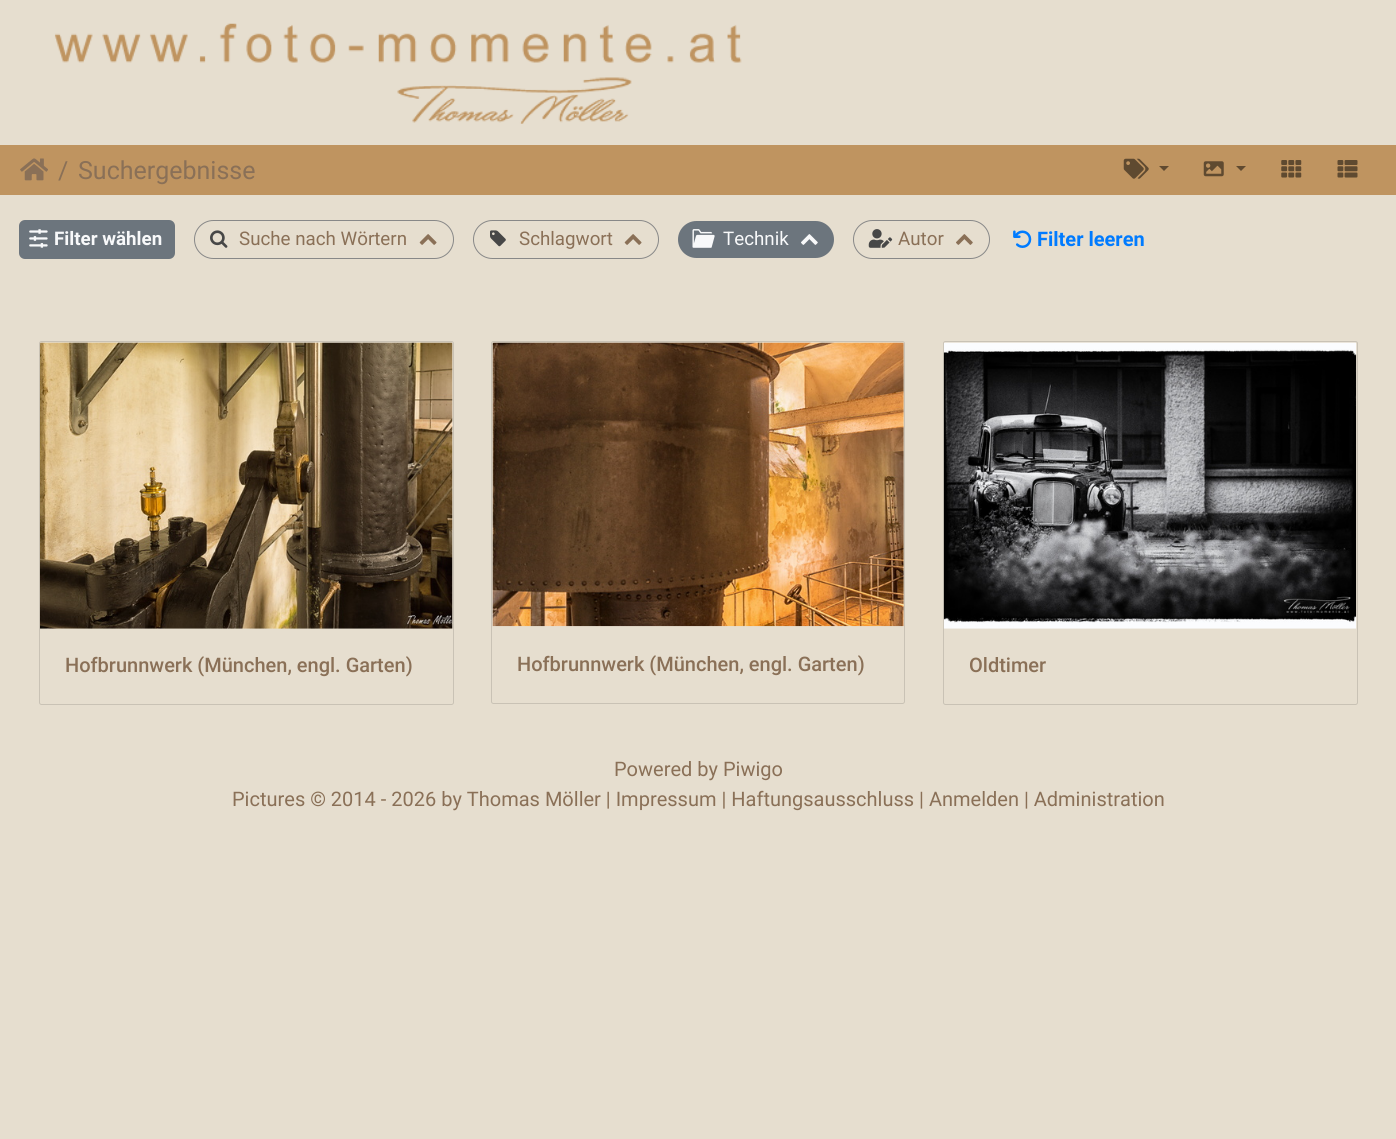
#include <cairo.h>
#include <math.h>
#include <stddef.h>

static cairo_t *c;
static void C(unsigned color){cairo_set_source_rgb(c, (color >> 16) / 255.0, (color >> 8 & 255) / 255.0, (color & 255) / 255.0);}
static void F(const char *family, double size, int italic, int bold){cairo_select_font_face(c, family, italic ? CAIRO_FONT_SLANT_ITALIC : CAIRO_FONT_SLANT_NORMAL,bold ? CAIRO_FONT_WEIGHT_BOLD : CAIRO_FONT_WEIGHT_NORMAL);cairo_set_font_size(c, size);}
static void T(double x, double y, const char *s){cairo_move_to(c, x, y);cairo_show_text(c, s);}
static void R(double x, double y, double w, double h){cairo_rectangle(c, x, y, w, h);cairo_fill(c);}
static void Q(double x, double y, double w, double h, double r){cairo_new_sub_path(c);cairo_arc(c, x + w - r, y + h - r, r, 0, M_PI / 2);cairo_arc(c, x + r, y + h - r, r, M_PI / 2, M_PI);cairo_arc(c, x + r, y + r, r, M_PI, 1.5 * M_PI);cairo_arc(c, x + w - r, y + r, r, 1.5 * M_PI, 2 * M_PI);cairo_close_path(c);}
static void I(const char *path, double x, double y, double w, double h){cairo_surface_t *image = cairo_image_surface_create_from_png(path);cairo_save(c);cairo_set_source_surface(c, image, x, y);cairo_rectangle(c, x, y, w, h);cairo_fill(c);cairo_restore(c);cairo_surface_destroy(image);}
int main(void) {
cairo_surface_t *surface = cairo_image_surface_create(CAIRO_FORMAT_RGB24, 1396, 1139);
c = cairo_create(surface);
cairo_font_options_t *options = cairo_font_options_create();
cairo_font_options_set_hint_metrics(options, CAIRO_HINT_METRICS_OFF);
cairo_font_options_set_hint_style(options, CAIRO_HINT_STYLE_NONE);
cairo_set_font_options(c, options);
cairo_set_miter_limit(c, 4);
C(0xe6decf);
cairo_paint(c);
I("1.png",54,23,688,101);
C(0xbf9460);
R(0,145,1396,50);
I("2.png",20,158,28,23);
F("Roboto",25,0,0);
C(0x8a7057);
T(58,179,"/");
T(78,179,"Suchergebnisse");
I("3.png",1123,158,26,21);
C(0x604a30);
cairo_new_path(c);
cairo_move_to(c,1159,166);
cairo_line_to(c,1169,166);
cairo_line_to(c,1164,171);
cairo_close_path(c);
cairo_fill(c);
I("4.png",1203,161,21,16);
cairo_new_path(c);
cairo_move_to(c,1236,166);
cairo_line_to(c,1246,166);
cairo_line_to(c,1241,171);
cairo_close_path(c);
cairo_fill(c);
I("5.png",1281,160,21,18);
I("6.png",1337,160,21,18);
C(0x6c757d);
Q(19,220,156,39,6);
cairo_fill(c);
I("7.png",29,229,19,19);
F("Roboto",18.75,0,1);
C(0xf8f9fa);
T(54,245,"Filter wählen");
Q(194.5,220.5,259,38,19);
C(0x888888);
cairo_set_line_width(c,1);
cairo_stroke(c);
I("8.png",210,230,18,18);
F("Roboto",18.75,0,0);
C(0x8a7057);
T(239,245,"Suche nach Wörtern");
I("9.png",419,234,18,11);
Q(473.5,220.5,185,38,19);
C(0x888888);
cairo_stroke(c);
I("10.png",490,230,16,17);
C(0x8a7057);
T(519,245,"Schlagwort");
I("9.png",624,234,18,11);
C(0x6c757d);
Q(678,221,156,37,18.5);
cairo_fill(c);
I("11.png",692,229,23,19);
C(0xf8f9fa);
T(723,245,"Technik");
I("12.png",801,234,17,11);
Q(853.5,220.5,136,38,19);
C(0x888888);
cairo_stroke(c);
I("13.png",868,229,25,19);
C(0x8a7057);
T(898,245,"Autor");
I("14.png",956,234,17,11);
I("15.png",1013,230,19,18);
F("Roboto",20,0,1);
C(0x007bff);
T(1037,246,"Filter leeren");
Q(39.5,341.5,414,363,2);
C(0xc9c2b5);
cairo_stroke(c);
I("16.png",40,342,413,287);
F("Roboto Medium",20,0,0);
C(0x8a7057);
T(65,672,"Hofbrunnwerk (München, engl. Garten)");
Q(491.5,341.5,413,362,2);
C(0xc9c2b5);
cairo_stroke(c);
I("17.png",492,342,412,285);
C(0x8a7057);
T(517,671,"Hofbrunnwerk (München, engl. Garten)");
Q(943.5,341.5,414,363,2);
C(0xc9c2b5);
cairo_stroke(c);
I("18.png",943,342,414,287);
C(0x8a7057);
T(969,672,"Oldtimer");
F("Roboto",20,0,0);
T(614,776,"Powered by Piwigo");
T(232,806,"Pictures © 2014 - 2026 by Thomas Möller | Impressum | Haftungsausschluss | Anmelden | Administration");
cairo_surface_write_to_png(surface, "o.png");
cairo_font_options_destroy(options);
cairo_destroy(c);
cairo_surface_destroy(surface);
return 0;
}
